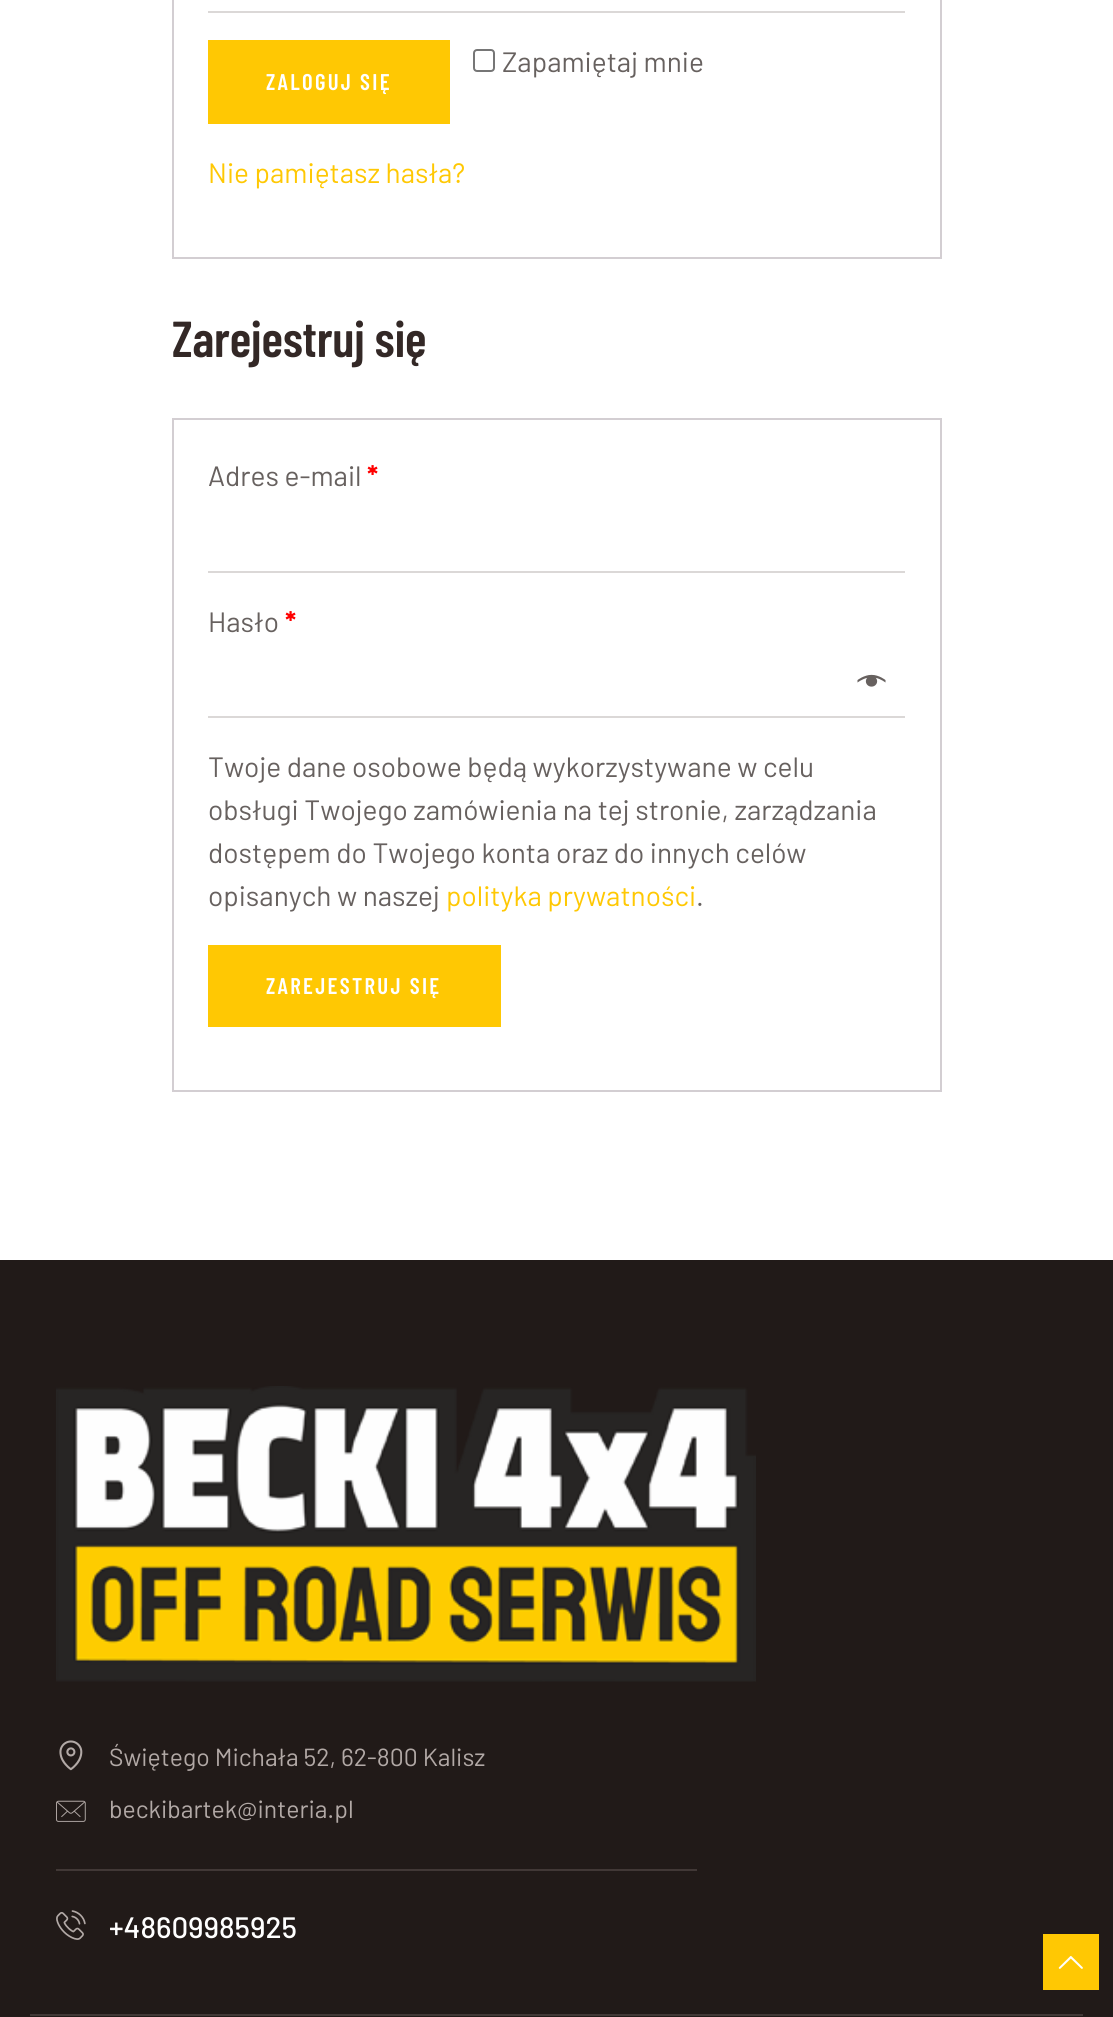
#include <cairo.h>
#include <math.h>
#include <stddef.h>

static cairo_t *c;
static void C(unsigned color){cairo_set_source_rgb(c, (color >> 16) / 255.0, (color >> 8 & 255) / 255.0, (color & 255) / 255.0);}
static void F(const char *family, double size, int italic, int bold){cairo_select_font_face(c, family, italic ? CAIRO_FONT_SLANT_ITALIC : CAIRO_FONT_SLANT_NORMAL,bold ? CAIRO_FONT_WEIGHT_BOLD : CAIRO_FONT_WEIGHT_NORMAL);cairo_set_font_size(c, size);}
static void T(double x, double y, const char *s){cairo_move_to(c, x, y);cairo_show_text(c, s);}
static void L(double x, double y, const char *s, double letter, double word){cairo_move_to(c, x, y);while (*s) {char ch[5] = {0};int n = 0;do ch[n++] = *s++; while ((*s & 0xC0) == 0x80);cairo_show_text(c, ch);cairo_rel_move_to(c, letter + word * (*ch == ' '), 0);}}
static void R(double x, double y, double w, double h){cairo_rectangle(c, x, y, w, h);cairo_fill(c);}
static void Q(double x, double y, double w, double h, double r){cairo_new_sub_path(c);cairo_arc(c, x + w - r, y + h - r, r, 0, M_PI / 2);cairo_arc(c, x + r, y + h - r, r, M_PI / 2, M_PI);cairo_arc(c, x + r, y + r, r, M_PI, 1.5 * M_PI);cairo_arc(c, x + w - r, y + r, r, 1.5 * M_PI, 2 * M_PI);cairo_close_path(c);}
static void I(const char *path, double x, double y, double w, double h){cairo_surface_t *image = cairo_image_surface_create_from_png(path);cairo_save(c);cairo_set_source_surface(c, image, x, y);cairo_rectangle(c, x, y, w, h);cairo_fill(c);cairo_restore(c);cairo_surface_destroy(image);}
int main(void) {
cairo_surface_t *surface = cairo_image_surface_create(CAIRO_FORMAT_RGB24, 1113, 2017);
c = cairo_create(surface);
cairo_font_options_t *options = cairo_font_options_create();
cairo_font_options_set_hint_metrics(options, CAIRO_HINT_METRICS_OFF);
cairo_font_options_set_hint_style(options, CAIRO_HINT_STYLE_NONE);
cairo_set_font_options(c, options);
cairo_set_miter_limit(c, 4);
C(0xffffff);
cairo_paint(c);
cairo_rectangle(c,173,-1,768,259);
C(0xd3ced2);
cairo_stroke(c);
C(0xdbd8d7);
R(208,11,697,2);
Q(474,50,20,21,3);
C(0x767676);
cairo_stroke(c);
F("Barlow",28,0,0);
C(0x67615f);
T(502,72,"Zapamiętaj mnie");
C(0xffc803);
R(208,40,242,84);
F("Barlow Condensed SemiBold",22.75,0,0);
C(0xffffff);
L(266,90,"ZALOGUJ SIĘ",2.3,0);
F("Barlow",28,0,0);
C(0xffc803);
T(208,183,"Nie pamiętasz hasła?");
F("Barlow Condensed SemiBold",50.5,0,0);
C(0x332826);
L(172,357,"Zarejestruj się",-.2,0);
cairo_rectangle(c,173,419,768,672);
C(0xd3ced2);
cairo_stroke(c);
F("Barlow",28,0,0);
C(0x67615f);
T(208,486,"Adres e-mail");
F("Barlow",28,0,1);
C(0xff0000);
T(367,486,"*");
C(0xdbd8d7);
R(208,571,697,2);
F("Barlow",28,0,0);
C(0x67615f);
T(208,632,"Hasło");
F("Barlow",28,0,1);
C(0xff0000);
T(285,632,"*");
I("1.png",857,674,29,13);
C(0xdbd8d7);
R(208,716,697,2);
F("Barlow",28,0,0);
C(0x67615f);
T(208,777,"Twoje dane osobowe będą wykorzystywane w celu");
T(208,820,"obsługi Twojego zamówienia na tej stronie, zarządzania");
T(208,863,"dostępem do Twojego konta oraz do innych celów");
T(208,906,"opisanych w naszej");
C(0xffc803);
T(446,906,"polityka prywatności");
C(0x67615f);
T(696,906,".");
C(0xffc803);
R(208,945,293,82);
F("Barlow Condensed SemiBold",22.75,0,0);
C(0xffffff);
L(266,994,"ZAREJESTRUJ SIĘ",2.3,0);
C(0x211a18);
R(0,1260,1113,757);
I("2.png",56,1386,700,296);
I("3.png",59,1740,24,31);
F("Barlow",24.75,0,0);
C(0xb2a9a6);
T(109,1766,"Świętego Michała 52, 62-800 Kalisz");
I("4.png",56,1800,30,22);
T(109,1818,"beckibartek@interia.pl");
C(0x413836);
R(56,1869,641,2);
I("5.png",56,1910,30,30);
F("Barlow Medium",29.5,0,0);
C(0xffffff);
T(109,1938,"+48609985925");
C(0x413836);
R(30,2014,1053,2);
C(0xffc803);
R(1043,1934,56,56);
I("6.png",1058,1956,25,13);
cairo_surface_write_to_png(surface, "o.png");
cairo_font_options_destroy(options);
cairo_destroy(c);
cairo_surface_destroy(surface);
return 0;
}
